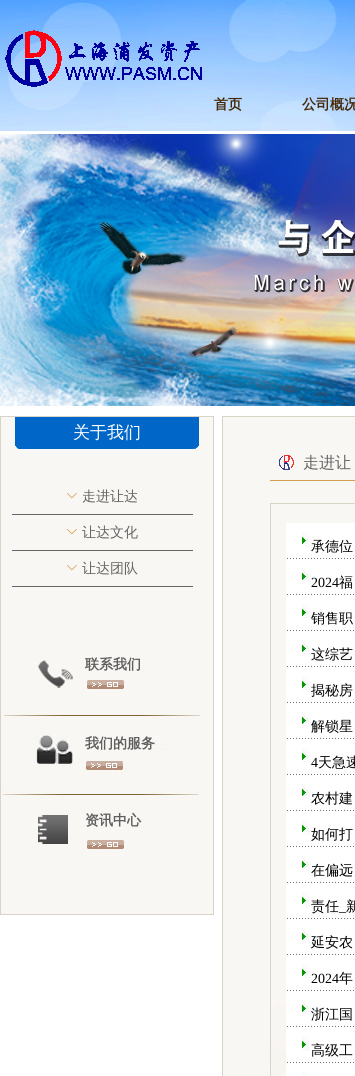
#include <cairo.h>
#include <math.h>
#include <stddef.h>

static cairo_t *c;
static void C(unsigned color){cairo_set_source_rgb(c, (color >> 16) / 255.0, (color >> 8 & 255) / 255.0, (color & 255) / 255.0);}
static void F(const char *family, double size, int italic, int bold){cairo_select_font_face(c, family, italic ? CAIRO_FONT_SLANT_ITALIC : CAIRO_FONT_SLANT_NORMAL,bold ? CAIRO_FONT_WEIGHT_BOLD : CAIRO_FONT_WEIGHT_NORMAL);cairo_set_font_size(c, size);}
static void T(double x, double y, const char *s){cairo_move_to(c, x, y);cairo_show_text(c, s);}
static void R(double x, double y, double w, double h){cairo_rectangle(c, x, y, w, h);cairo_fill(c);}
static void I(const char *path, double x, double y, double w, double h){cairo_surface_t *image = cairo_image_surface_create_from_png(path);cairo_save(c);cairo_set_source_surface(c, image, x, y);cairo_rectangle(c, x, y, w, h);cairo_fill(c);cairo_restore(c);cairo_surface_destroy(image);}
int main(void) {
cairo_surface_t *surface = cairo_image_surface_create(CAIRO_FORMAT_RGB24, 355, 1076);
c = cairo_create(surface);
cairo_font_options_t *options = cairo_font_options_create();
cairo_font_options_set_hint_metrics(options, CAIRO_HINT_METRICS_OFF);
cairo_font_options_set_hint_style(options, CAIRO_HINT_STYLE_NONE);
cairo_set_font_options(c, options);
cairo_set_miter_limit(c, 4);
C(0xffffff);
cairo_paint(c);
I("1.png",0,0,355,131);
I("2.png",5,30,197,57);
F("WenQuanYi Zen Hei",14,0,1);
C(0x472907);
T(214,109,"首页");
T(302,109,"公司概况");
I("3.png",0,134,355,272);
C(0xf9f7f3);
cairo_rectangle(c,.5,416.5,213,498);
cairo_fill_preserve(c);
C(0xd9d2c6);
cairo_set_line_width(c,1);
cairo_stroke(c);
I("4.png",15,417,184,32);
F("WenQuanYi Zen Hei Medium",17,0,0);
C(0xffffff);
T(73,438,"关于我们");
I("5.png",67,493,10,6);
C(0x656565);
R(12,514,181,1);
F("WenQuanYi Zen Hei Medium",14,0,0);
T(82,501,"走进让达");
I("5.png",67,529,10,6);
R(12,550,181,1);
T(82,537,"让达文化");
I("5.png",67,565,10,6);
R(12,586,181,1);
T(82,573,"让达团队");
I("6.png",3,660,197,56);
F("WenQuanYi Zen Hei",14,0,1);
C(0x5e5e5e);
T(85,669,"联系我们");
I("7.png",2,735,198,60);
T(85,748,"我们的服务");
I("8.png",38,815,86,36);
T(85,825,"资讯中心");
C(0xf9f7f3);
cairo_rectangle(c,222.5,416.5,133,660);
cairo_fill_preserve(c);
C(0xd9d2c6);
cairo_stroke(c);
I("9.png",270,480,85,1);
I("10.png",279,455,15,15);
F("WenQuanYi Zen Hei Medium",16,0,0);
C(0x656565);
T(303,468,"走进让");
I("11.png",271,999,15,76);
cairo_rectangle(c,270.5,503.5,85,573);
C(0xdad4c8);
cairo_stroke(c);
I("12.png",286,523,69,36);
F("WenQuanYi Zen Hei Medium",14,0,0);
C(0x000000);
T(311,551,"承德位");
I("12.png",286,559,69,36);
F("Liberation Serif",14,0,0);
T(311,587,"2024");
F("WenQuanYi Zen Hei Medium",14,0,0);
T(339,587,"福");
I("12.png",286,595,69,36);
T(311,623,"销售职");
I("12.png",286,631,69,36);
T(311,659,"这综艺");
I("12.png",286,667,69,36);
T(311,695,"揭秘房");
I("12.png",286,703,69,36);
T(311,731,"解锁星");
I("12.png",286,739,69,36);
F("Liberation Serif",14,0,0);
T(311,767,"4");
F("WenQuanYi Zen Hei Medium",14,0,0);
T(318,767,"天急速");
I("12.png",286,775,69,36);
T(311,803,"农村建");
I("12.png",286,811,69,36);
T(311,839,"如何打");
I("12.png",286,847,69,36);
T(311,875,"在偏远");
I("12.png",286,883,69,36);
T(311,911,"责任");
F("Liberation Serif",14,0,0);
T(339,911,"_");
F("WenQuanYi Zen Hei Medium",14,0,0);
T(346,911,"新");
I("12.png",286,919,69,36);
T(311,947,"延安农");
I("12.png",286,955,69,36);
F("Liberation Serif",14,0,0);
T(311,983,"2024");
F("WenQuanYi Zen Hei Medium",14,0,0);
T(339,983,"年");
I("12.png",286,991,69,36);
T(311,1019,"浙江国");
I("12.png",286,1027,69,36);
T(311,1055,"高级工");
I("13.png",286,1063,69,13);
cairo_surface_write_to_png(surface, "o.png");
cairo_font_options_destroy(options);
cairo_destroy(c);
cairo_surface_destroy(surface);
return 0;
}
